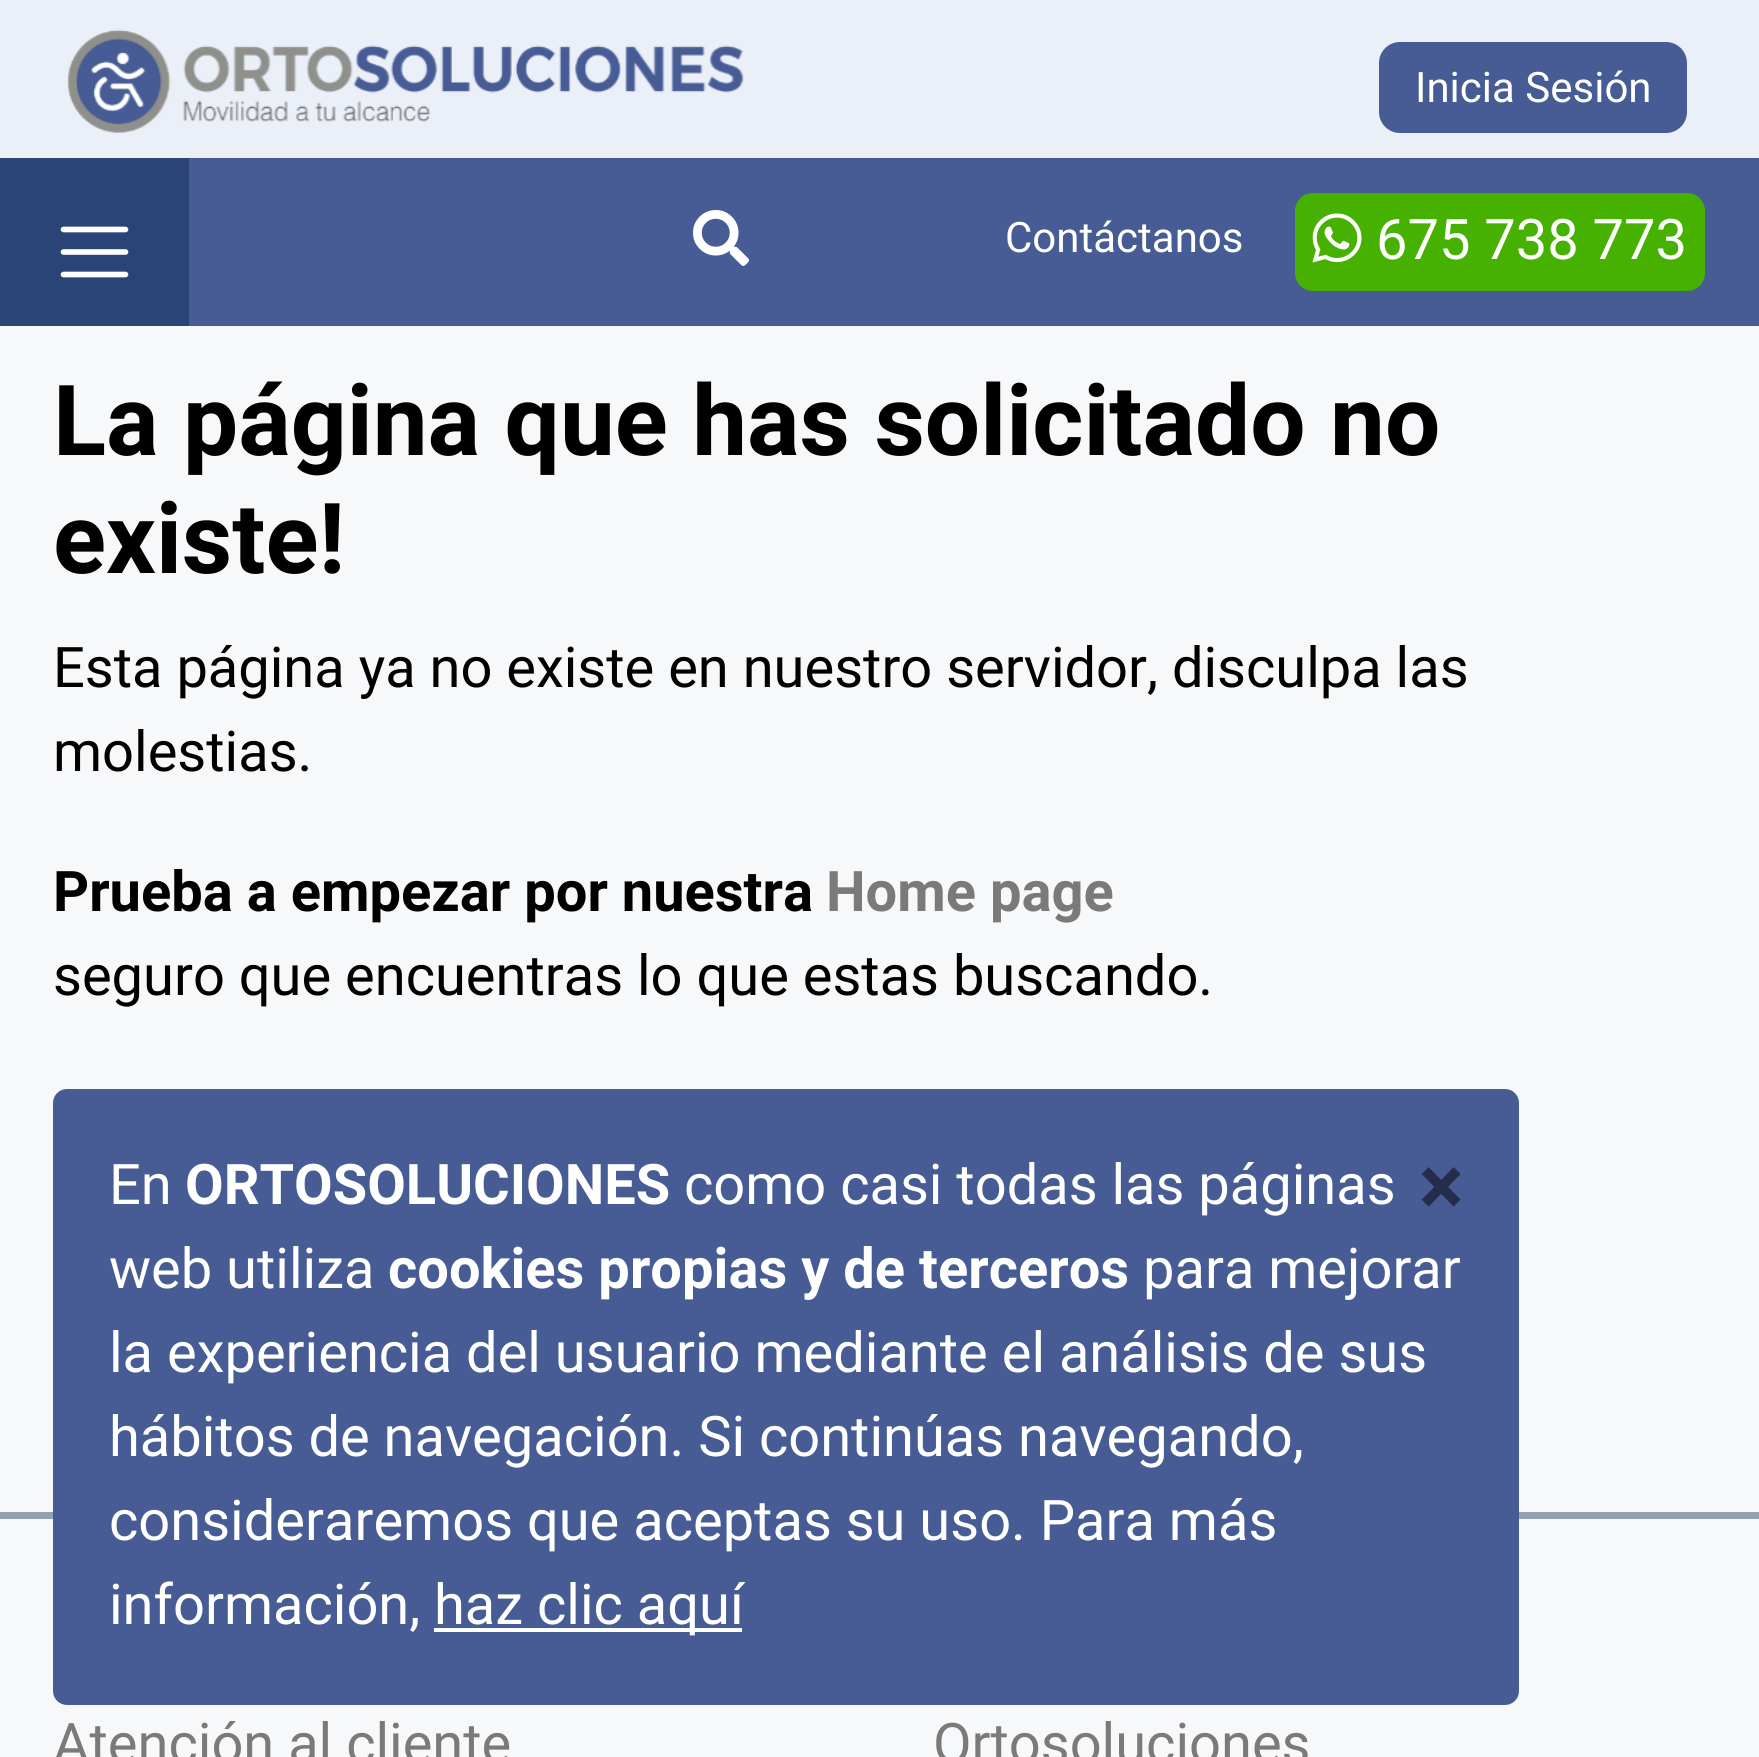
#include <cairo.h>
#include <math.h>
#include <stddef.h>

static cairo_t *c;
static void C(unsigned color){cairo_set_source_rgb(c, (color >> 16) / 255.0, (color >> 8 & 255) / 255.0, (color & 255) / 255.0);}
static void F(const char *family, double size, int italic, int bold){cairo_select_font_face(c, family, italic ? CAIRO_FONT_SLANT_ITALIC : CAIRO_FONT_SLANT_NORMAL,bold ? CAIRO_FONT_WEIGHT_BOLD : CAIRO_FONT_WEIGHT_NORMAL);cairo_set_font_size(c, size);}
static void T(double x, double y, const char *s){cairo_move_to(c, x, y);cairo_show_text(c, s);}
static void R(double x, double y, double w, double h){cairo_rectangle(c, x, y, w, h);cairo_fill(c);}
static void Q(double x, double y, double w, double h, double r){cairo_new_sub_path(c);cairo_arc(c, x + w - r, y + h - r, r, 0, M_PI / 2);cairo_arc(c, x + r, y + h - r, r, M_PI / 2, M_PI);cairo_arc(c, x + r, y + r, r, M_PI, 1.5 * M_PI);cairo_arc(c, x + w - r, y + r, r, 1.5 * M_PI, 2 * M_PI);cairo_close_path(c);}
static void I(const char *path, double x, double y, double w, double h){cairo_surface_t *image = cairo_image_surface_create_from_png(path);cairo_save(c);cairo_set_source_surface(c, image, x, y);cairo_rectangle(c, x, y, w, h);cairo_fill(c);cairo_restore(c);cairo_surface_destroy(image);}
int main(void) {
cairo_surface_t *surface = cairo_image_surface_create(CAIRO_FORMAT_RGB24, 1759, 1757);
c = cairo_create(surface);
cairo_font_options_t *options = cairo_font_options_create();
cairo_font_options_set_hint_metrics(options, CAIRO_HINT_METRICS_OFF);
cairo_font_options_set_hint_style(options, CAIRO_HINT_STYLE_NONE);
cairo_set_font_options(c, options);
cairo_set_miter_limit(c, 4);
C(0xf7f8fa);
cairo_paint(c);
C(0xebeff8);
R(0,0,1759,158);
I("1.png",67,29,677,104);
C(0x475c95);
Q(1379,42,308,91,21);
cairo_fill(c);
F("Roboto",42,0,0);
C(0xffffff);
T(1415,102,"Inicia Sesión");
C(0x475c95);
R(189,158,1570,168);
C(0x2b4477);
R(0,158,189,168);
cairo_new_path(c);
cairo_move_to(c,63.5,229.5);
cairo_line_to(c,125.5,229.5);
cairo_move_to(c,63.5,252);
cairo_line_to(c,125.5,252);
cairo_move_to(c,63.5,274.5);
cairo_line_to(c,125.5,274.5);
C(0xffffff);
cairo_set_line_width(c,5.6);
cairo_set_line_cap(c,CAIRO_LINE_CAP_ROUND);
cairo_stroke(c);
I("2.png",693,210,56,56);
T(1005,252,"Contáctanos");
C(0x46b100);
Q(1295,193,410,98,18);
cairo_fill(c);
I("3.png",1312,213,50,50);
F("Roboto",56,0,0);
C(0xffffff);
T(1376,259,"675 738 773");
F("Roboto",98,0,1);
C(0x000000);
T(53,455,"La página que has solicitado no");
T(53,573,"existe!");
F("Roboto",56,0,0);
T(53,687,"Esta página ya no existe en nuestro servidor, disculpa las");
T(53,771,"molestias.");
F("Roboto",56,0,1);
T(53,911,"Prueba a empezar por nuestra");
C(0x7a7a7a);
T(826,911,"Home page");
F("Roboto",56,0,0);
C(0x000000);
T(53,995,"seguro que encuentras lo que estas buscando.");
C(0x94a1ae);
R(0,1512,1759,7);
C(0x475c95);
Q(53,1089,1466,616,14);
cairo_fill(c);
C(0xffffff);
T(109,1204,"En");
F("Roboto",56,0,1);
T(185,1204,"ORTOSOLUCIONES");
F("Roboto",56,0,0);
T(684,1204,"como casi todas las páginas");
F("Roboto",84,0,1);
C(0x242e4b);
T(1419,1215,"×");
F("Roboto",56,0,0);
C(0xffffff);
T(109,1288,"web utiliza");
F("Roboto",56,0,1);
T(388,1288,"cookies propias y de terceros");
F("Roboto",56,0,0);
T(1143,1288,"para mejorar");
T(109,1372,"la experiencia del usuario mediante el análisis de sus");
T(109,1456,"hábitos de navegación. Si continúas navegando,");
T(109,1540,"consideraremos que aceptas su uso. Para más");
T(109,1624,"información,");
R(434,1628,308,4);
T(434,1624,"haz clic aquí");
C(0x7a7a7a);
T(53,1763,"Atención al cliente");
T(933,1763,"Ortosoluciones");
cairo_surface_write_to_png(surface, "o.png");
cairo_font_options_destroy(options);
cairo_destroy(c);
cairo_surface_destroy(surface);
return 0;
}
